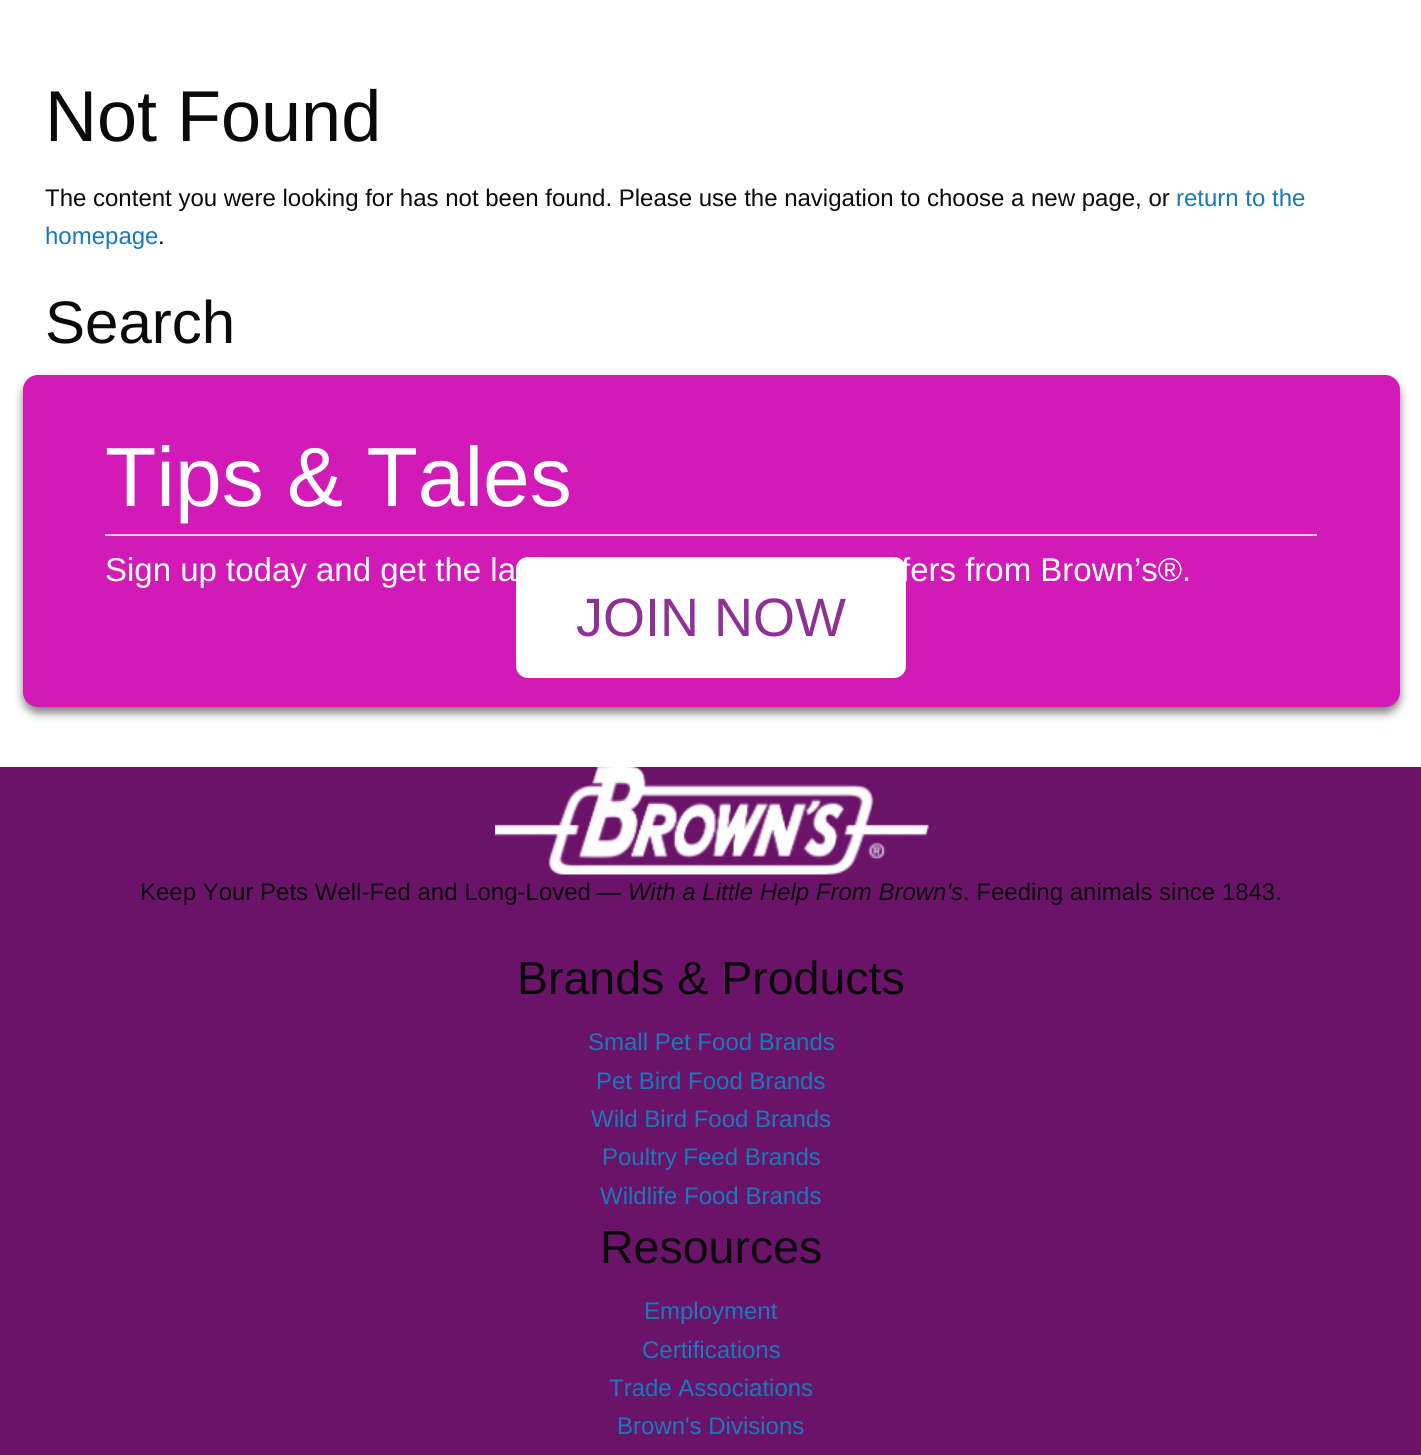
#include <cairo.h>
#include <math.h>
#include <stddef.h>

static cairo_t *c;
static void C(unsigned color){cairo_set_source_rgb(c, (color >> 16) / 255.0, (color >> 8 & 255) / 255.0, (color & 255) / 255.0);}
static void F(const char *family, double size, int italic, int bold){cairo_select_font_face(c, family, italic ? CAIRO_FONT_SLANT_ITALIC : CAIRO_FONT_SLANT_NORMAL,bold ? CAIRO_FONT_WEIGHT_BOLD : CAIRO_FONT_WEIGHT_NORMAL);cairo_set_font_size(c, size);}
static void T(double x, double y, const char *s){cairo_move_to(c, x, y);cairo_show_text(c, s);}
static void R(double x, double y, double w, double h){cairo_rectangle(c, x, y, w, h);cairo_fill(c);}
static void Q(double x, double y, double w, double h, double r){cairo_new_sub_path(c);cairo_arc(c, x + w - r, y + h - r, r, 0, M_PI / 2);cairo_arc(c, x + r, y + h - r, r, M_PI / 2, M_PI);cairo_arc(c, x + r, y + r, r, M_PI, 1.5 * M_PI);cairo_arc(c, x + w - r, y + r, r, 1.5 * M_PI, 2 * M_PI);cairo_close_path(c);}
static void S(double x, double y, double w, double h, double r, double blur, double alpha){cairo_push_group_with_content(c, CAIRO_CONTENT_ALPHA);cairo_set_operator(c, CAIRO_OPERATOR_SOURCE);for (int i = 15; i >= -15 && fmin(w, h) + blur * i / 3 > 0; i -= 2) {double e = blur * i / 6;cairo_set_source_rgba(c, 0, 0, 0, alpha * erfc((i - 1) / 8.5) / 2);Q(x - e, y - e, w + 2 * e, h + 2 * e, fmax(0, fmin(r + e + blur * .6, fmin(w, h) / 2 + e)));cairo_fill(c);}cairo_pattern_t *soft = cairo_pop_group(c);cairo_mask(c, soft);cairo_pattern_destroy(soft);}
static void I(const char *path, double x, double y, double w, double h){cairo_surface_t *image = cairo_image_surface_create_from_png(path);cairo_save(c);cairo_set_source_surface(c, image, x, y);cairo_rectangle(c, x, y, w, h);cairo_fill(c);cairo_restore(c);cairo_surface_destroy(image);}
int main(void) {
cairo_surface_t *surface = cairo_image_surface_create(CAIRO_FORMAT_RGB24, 1421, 1455);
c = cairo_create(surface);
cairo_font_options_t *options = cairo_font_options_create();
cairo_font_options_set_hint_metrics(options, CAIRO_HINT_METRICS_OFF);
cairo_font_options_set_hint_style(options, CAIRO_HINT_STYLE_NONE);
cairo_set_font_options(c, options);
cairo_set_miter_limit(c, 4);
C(0xffffff);
cairo_paint(c);
F("Liberation Sans",72,0,0);
C(0x0a0a0a);
T(45,141,"Not Found");
F("Liberation Sans",24,0,0);
T(45,206,"The content you were looking for has not been found. Please use the navigation to choose a new page, or");
C(0x1779ba);
T(1176,206,"return to the");
T(45,244,"homepage");
C(0x0a0a0a);
T(158,244,".");
F("Liberation Sans",60,0,0);
T(45,343,"Search");
C(0x000000);
S(23,381,1377,332,15,4.5,.5);
C(0xd11ab7);
Q(23,375,1377,332,15);
cairo_fill(c);
F("Liberation Sans",84,0,0);
C(0xffffff);
T(105,506,"Tips & Tales");
C(0xf3ccf5);
R(105,534,1212,2);
F("Liberation Sans",33,0,0);
C(0xffffff);
T(105,581,"Sign up today and get the la");
T(901,581,"fers from Brown’s®.");
Q(516,557,390,121,12);
cairo_fill(c);
F("Liberation Sans",54,0,0);
C(0x8d3192);
T(576,636,"JOIN NOW");
C(0x6b1269);
R(0,767,1421,688);
I("1.png",495,767,434,108);
F("Liberation Sans",24,0,0);
C(0x0a0a0a);
T(140,900,"Keep Your Pets Well-Fed and Long-Loved");
F("Liberation Sans",24,1,0);
T(597,900,"— With a Little Help From Brown's");
F("Liberation Sans",24,0,0);
T(963,900,". Feeding animals since 1843.");
F("Liberation Sans",46.5,0,0);
T(517,994,"Brands & Products");
F("Liberation Sans",24,0,0);
C(0x1779ba);
T(588,1050,"Small Pet Food Brands");
T(596,1089,"Pet Bird Food Brands");
T(591,1127,"Wild Bird Food Brands");
T(602,1165,"Poultry Feed Brands");
T(600,1204,"Wildlife Food Brands");
F("Liberation Sans",46.5,0,0);
C(0x0a0a0a);
T(600,1263,"Resources");
F("Liberation Sans",24,0,0);
C(0x1779ba);
T(644,1319,"Employment");
T(642,1358,"Certifications");
T(609,1396,"Trade Associations");
T(617,1434,"Brown's Divisions");
cairo_surface_write_to_png(surface, "o.png");
cairo_font_options_destroy(options);
cairo_destroy(c);
cairo_surface_destroy(surface);
return 0;
}
